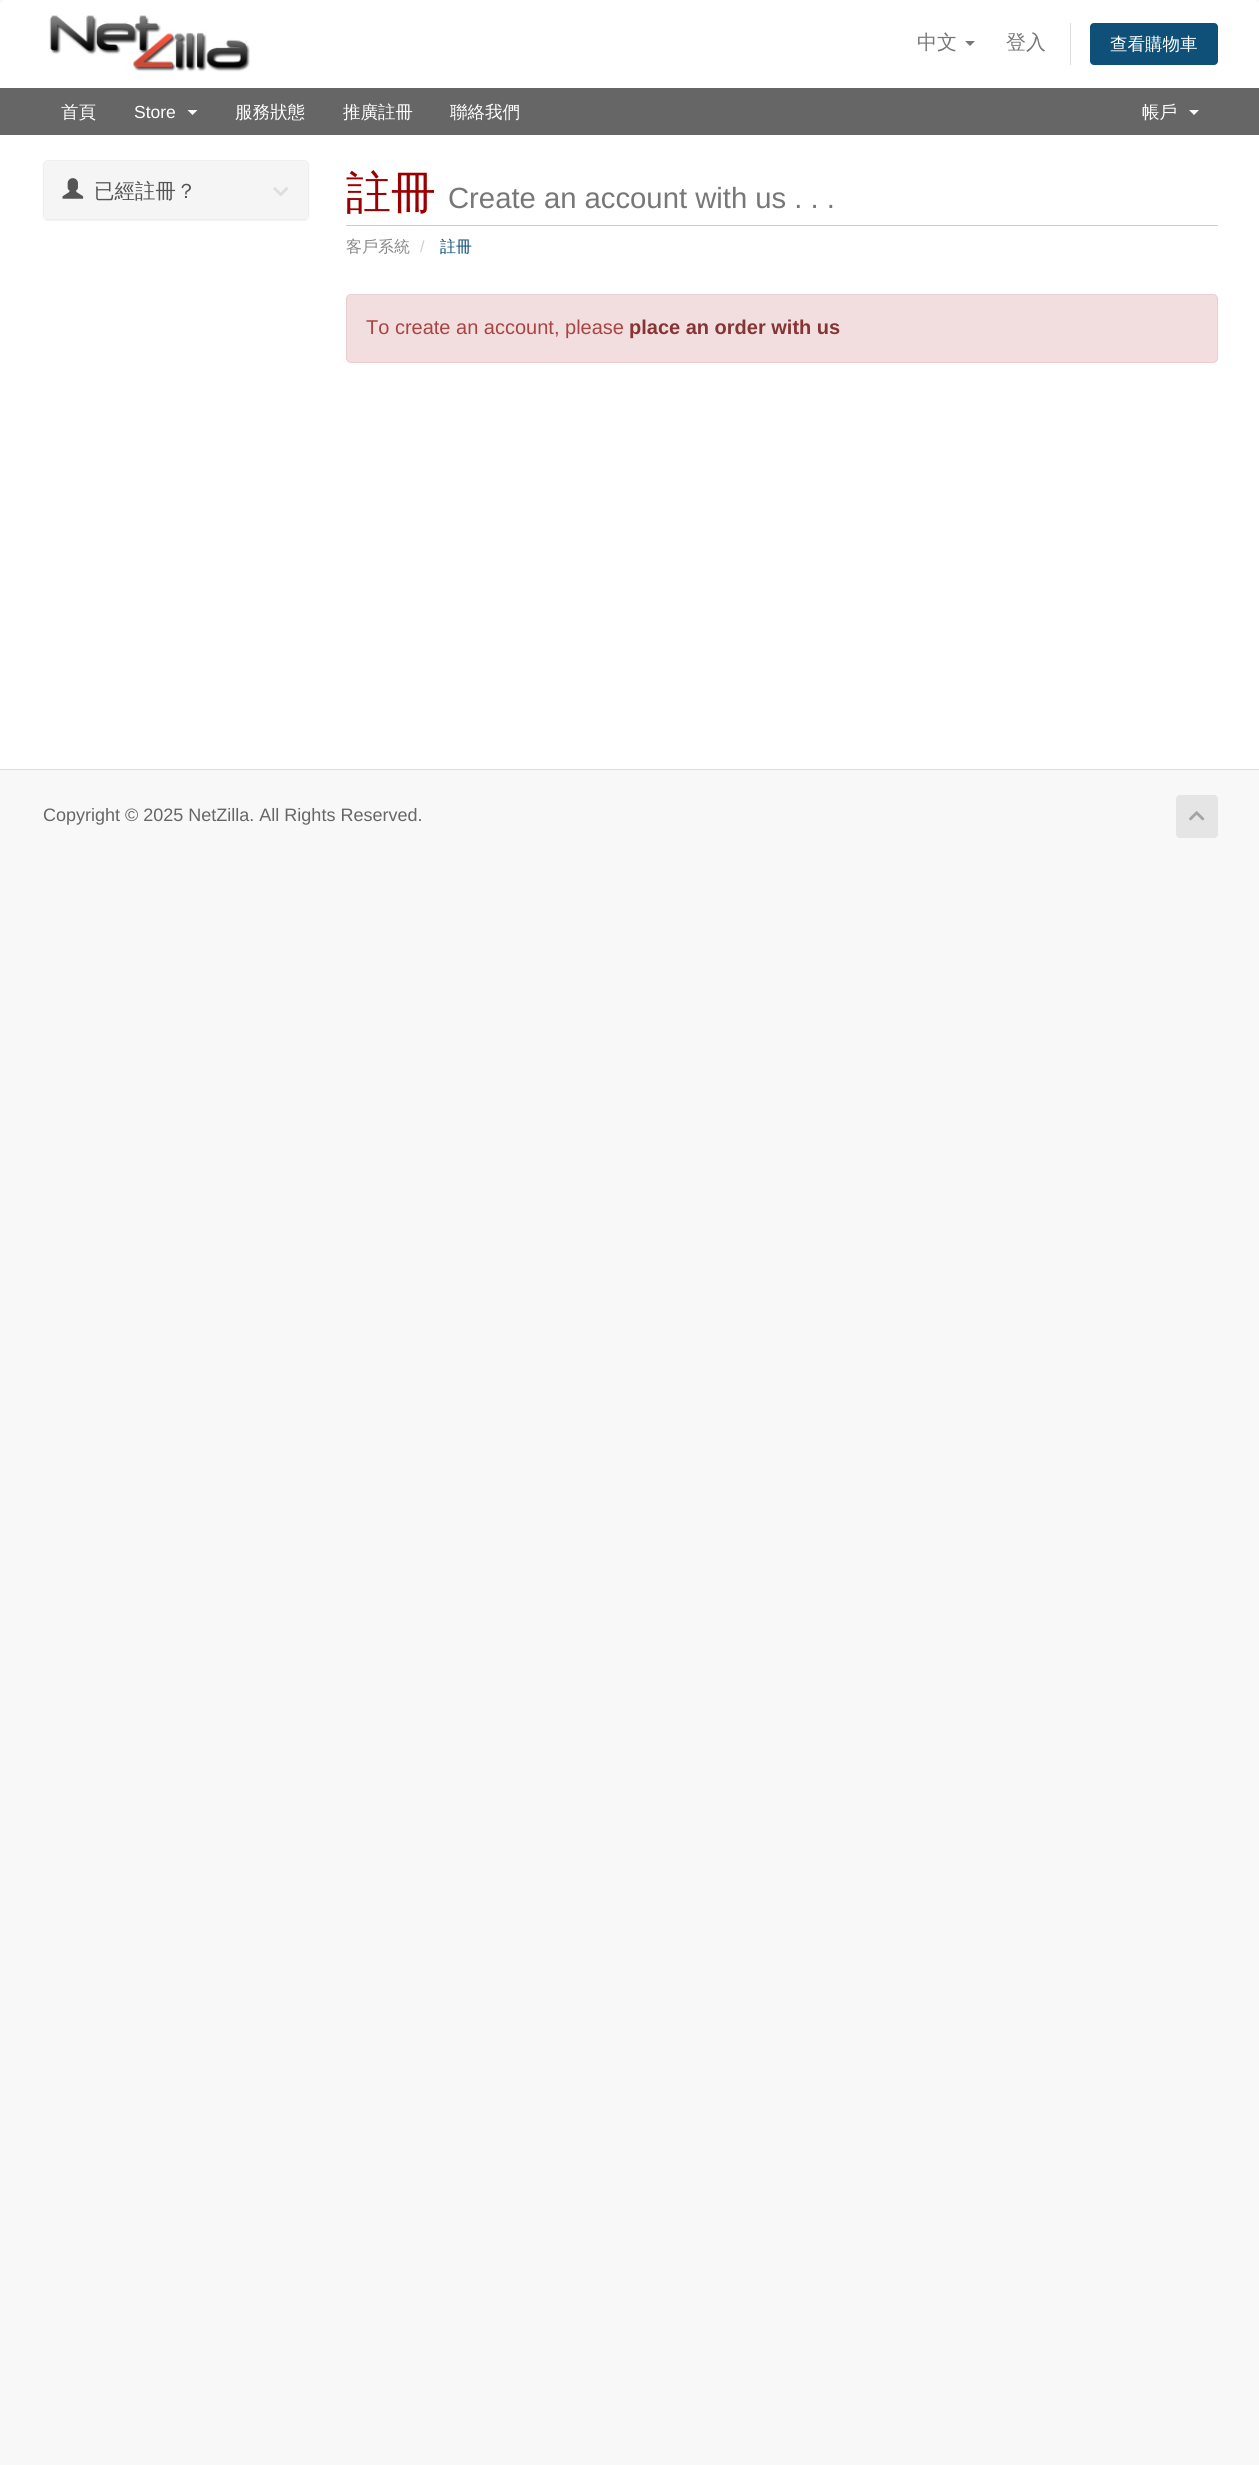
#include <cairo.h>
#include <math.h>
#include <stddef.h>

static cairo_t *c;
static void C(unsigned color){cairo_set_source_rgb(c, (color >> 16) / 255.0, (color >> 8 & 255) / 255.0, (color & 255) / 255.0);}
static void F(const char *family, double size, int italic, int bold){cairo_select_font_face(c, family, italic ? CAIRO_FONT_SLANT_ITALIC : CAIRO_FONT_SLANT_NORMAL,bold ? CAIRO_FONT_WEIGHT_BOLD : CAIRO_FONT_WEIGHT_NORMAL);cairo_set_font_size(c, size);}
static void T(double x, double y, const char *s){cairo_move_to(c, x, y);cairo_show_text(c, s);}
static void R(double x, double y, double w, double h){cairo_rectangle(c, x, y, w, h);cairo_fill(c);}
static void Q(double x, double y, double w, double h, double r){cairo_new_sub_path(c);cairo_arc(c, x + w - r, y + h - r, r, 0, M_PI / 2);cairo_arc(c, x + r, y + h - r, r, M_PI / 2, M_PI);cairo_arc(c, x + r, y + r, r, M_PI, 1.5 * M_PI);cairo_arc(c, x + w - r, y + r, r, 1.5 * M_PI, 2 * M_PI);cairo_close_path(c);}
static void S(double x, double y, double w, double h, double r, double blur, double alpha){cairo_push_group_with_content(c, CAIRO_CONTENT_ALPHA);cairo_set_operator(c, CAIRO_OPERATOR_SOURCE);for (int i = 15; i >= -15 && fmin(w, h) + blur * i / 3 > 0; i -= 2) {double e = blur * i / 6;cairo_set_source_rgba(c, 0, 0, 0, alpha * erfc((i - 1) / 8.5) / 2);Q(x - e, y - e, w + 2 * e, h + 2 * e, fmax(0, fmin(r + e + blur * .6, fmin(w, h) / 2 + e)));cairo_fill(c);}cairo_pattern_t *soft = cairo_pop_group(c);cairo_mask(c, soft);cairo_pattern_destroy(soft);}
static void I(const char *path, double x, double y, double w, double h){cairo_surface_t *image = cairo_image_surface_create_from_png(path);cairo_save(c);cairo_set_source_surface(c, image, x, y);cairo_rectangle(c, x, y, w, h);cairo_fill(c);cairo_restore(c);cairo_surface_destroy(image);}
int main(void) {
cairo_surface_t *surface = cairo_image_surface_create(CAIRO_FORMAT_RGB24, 1259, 2465);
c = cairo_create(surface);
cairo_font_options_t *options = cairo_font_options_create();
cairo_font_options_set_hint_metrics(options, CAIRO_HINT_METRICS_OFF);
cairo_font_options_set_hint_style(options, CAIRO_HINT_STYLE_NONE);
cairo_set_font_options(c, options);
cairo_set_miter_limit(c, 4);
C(0xf8f8f8);
cairo_paint(c);
C(0xffffff);
cairo_new_path(c);
cairo_move_to(c,6,0);
cairo_line_to(c,1254,0);
cairo_curve_to(c,1257.5,0,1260,2.5,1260,6);
cairo_line_to(c,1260,88);
cairo_line_to(c,0,88);
cairo_line_to(c,0,6);
cairo_curve_to(c,0,2.5,2.5,0,6,0);
cairo_close_path(c);
cairo_fill(c);
I("1.png",49,15,201,57);
F("WenQuanYi Zen Hei Medium",20,0,0);
C(0x777777);
T(917,49,"中文");
cairo_new_path(c);
cairo_move_to(c,965,41);
cairo_line_to(c,975,41);
cairo_line_to(c,970,46);
cairo_close_path(c);
cairo_fill(c);
T(1006,49,"登入");
C(0xdddddd);
R(1070,23,1,42);
C(0x0e5077);
Q(1090,23,128,42,4);
cairo_fill(c);
F("WenQuanYi Zen Hei Medium",17.5,0,0);
C(0xffffff);
T(1110,50,"查看購物車");
C(0x666666);
R(0,88,1259,47);
C(0xffffff);
T(61,118,"首頁");
F("Liberation Sans",17.5,0,0);
T(134,118,"Store");
cairo_new_path(c);
cairo_move_to(c,187.5,110);
cairo_line_to(c,197.5,110);
cairo_line_to(c,192.5,115);
cairo_close_path(c);
cairo_fill(c);
F("WenQuanYi Zen Hei Medium",17.5,0,0);
T(235,118,"服務狀態");
T(343,118,"推廣註冊");
T(450,118,"聯絡我們");
T(1142,118,"帳戶");
cairo_new_path(c);
cairo_move_to(c,1189,110);
cairo_line_to(c,1199,110);
cairo_line_to(c,1194,115);
cairo_close_path(c);
cairo_fill(c);
R(0,135,1259,634);
C(0x000000);
S(43,161,266,60,5,.5,.05);
Q(43.5,160.5,265,59,4.5);
C(0xeeeeee);
cairo_set_line_width(c,1);
cairo_stroke(c);
C(0xf5f5f5);
cairo_new_path(c);
cairo_move_to(c,48,161);
cairo_line_to(c,304,161);
cairo_curve_to(c,306,161,308,163,308,165);
cairo_line_to(c,308,219);
cairo_line_to(c,44,219);
cairo_line_to(c,44,165);
cairo_curve_to(c,44,163,46,161,48,161);
cairo_close_path(c);
cairo_fill(c);
I("2.png",62,178,22,21);
F("WenQuanYi Zen Hei Medium",20.5,0,0);
C(0x555555);
T(94,198,"已經註冊？");
I("3.png",273,187,15,9);
C(0xcccccc);
R(346,225,872,1);
F("WenQuanYi Zen Hei Medium",45,0,0);
C(0x9b0000);
T(346,208,"註冊");
F("Liberation Sans",29.25,0,0);
C(0x777777);
T(448,208,"Create an account with us . . .");
F("WenQuanYi Zen Hei Medium",16,0,0);
C(0x888888);
T(346,252,"客戶系統");
F("Liberation Sans",16,0,0);
C(0xcccccc);
T(420,252,"/");
F("WenQuanYi Zen Hei Medium",16,0,0);
C(0x0e5077);
T(440,252,"註冊");
C(0xf2dede);
Q(346.5,294.5,871,68,4.5);
cairo_fill_preserve(c);
C(0xebccd1);
cairo_stroke(c);
F("Liberation Sans",20,0,0);
C(0xa94442);
T(366,334,"To create an account, please");
F("Liberation Sans",20,0,1);
C(0x843534);
T(629,334,"place an order with us");
C(0xdddddd);
R(0,769,1259,1);
F("Liberation Sans",18,0,0);
C(0x666666);
T(43,821,"Copyright © 2025 NetZilla. All Rights Reserved.");
C(0xe5e5e5);
Q(1176,795,42,43,4);
cairo_fill(c);
I("4.png",1189,811,16,10);
cairo_surface_write_to_png(surface, "o.png");
cairo_font_options_destroy(options);
cairo_destroy(c);
cairo_surface_destroy(surface);
return 0;
}
